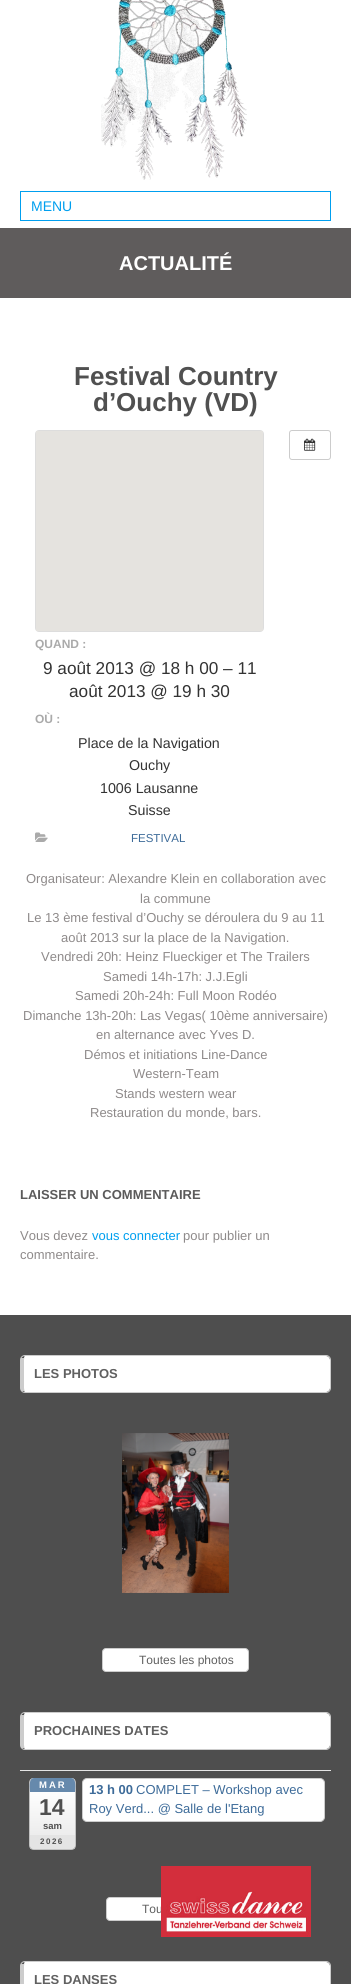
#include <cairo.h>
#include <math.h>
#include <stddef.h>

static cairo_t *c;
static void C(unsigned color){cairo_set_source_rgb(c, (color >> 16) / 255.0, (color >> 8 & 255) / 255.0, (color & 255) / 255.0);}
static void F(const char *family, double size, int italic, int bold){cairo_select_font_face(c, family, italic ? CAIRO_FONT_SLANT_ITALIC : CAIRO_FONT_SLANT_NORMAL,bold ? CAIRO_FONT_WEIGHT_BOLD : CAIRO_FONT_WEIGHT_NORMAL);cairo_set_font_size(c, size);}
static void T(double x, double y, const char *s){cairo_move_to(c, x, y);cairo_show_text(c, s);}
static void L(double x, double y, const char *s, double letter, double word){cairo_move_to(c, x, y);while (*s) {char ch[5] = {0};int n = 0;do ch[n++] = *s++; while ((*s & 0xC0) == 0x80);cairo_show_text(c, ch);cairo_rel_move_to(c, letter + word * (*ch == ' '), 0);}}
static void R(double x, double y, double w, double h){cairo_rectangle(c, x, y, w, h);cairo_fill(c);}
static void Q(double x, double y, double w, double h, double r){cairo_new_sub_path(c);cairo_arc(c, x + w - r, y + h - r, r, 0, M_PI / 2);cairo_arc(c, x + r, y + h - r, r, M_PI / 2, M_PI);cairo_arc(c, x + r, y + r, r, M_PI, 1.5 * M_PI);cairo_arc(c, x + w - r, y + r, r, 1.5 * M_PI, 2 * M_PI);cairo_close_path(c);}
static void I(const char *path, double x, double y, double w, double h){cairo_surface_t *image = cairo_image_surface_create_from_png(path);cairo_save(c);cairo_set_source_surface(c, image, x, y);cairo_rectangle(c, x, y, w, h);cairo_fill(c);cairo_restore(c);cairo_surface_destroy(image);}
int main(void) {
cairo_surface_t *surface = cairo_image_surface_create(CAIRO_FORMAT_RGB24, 351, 1984);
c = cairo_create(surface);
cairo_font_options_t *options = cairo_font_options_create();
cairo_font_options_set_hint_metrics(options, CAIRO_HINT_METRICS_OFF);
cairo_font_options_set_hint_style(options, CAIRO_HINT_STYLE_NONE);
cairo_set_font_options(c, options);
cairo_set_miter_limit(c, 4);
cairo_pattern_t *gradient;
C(0xffffff);
cairo_paint(c);
I("1.png",101,0,146,180);
cairo_rectangle(c,20.5,191.5,310,29);
C(0x009fef);
cairo_set_line_width(c,1);
cairo_stroke(c);
F("Liberation Sans",14,0,0);
T(31,211,"MENU");
C(0x5f5c5c);
R(0,228,351,70);
F("Liberation Sans",20,0,1);
C(0xffffff);
T(119,270,"ACTUALITÉ");
F("Liberation Sans",26,0,1);
C(0x505050);
T(74,385,"Festival Country");
T(93,411,"d’Ouchy (VD)");
Q(289.5,430.5,41,29,2.5);
C(0xcccccc);
cairo_stroke(c);
I("2.png",304,438,12,13);
Q(35.5,430.5,228,201,3.5);
C(0xdddddd);
cairo_stroke(c);
C(0xe5e3df);
R(36,431,227,200);
F("Liberation Sans",12,0,1);
C(0xaaaaaa);
T(35,648,"QUAND :");
F("Liberation Sans",17.2,0,0);
C(0x333333);
T(43,674,"9 août 2013 @ 18 h 00 – 11");
T(69,697,"août 2013 @ 19 h 30");
F("Liberation Sans",12,0,1);
C(0xaaaaaa);
T(35,723,"OÙ :");
F("Liberation Sans",14.25,0,0);
C(0x333333);
T(78,748,"Place de la Navigation");
T(129,770,"Ouchy");
T(100,793,"1006 Lausanne");
T(128,815,"Suisse");
I("3.png",35,832,13,10);
F("Liberation Sans",11.5,0,0);
C(0x3d6b99);
T(131,842,"FESTIVAL");
F("Liberation Sans",13,0,0);
C(0x8e8a8a);
T(26,883,"Organisateur: Alexandre Klein en collaboration avec");
T(140,903,"la commune");
T(27,922,"Le 13 ème festival d’Ouchy se déroulera du 9 au 11");
T(61,942,"août 2013 sur la place de la Navigation.");
T(41,961,"Vendredi 20h: Heinz Flueckiger et The Trailers");
T(103,981,"Samedi 14h-17h: J.J.Egli");
T(75,1000,"Samedi 20h-24h: Full Moon Rodéo");
T(23,1020,"Dimanche 13h-20h: Las Vegas( 10ème anniversaire)");
T(96,1039,"en alternance avec Yves D.");
T(84,1059,"Démos et initiations Line-Dance");
T(133,1078,"Western-Team");
T(115,1098,"Stands western wear");
T(90,1117,"Restauration du monde, bars.");
F("Liberation Sans",13,0,1);
C(0x5b5a5a);
T(20,1199,"LAISSER UN COMMENTAIRE");
F("Liberation Sans",13,0,0);
C(0x8e8a8a);
T(20,1240,"Vous devez");
C(0x009fef);
T(92,1240,"vous connecter");
C(0x8e8a8a);
T(183,1240,"pour publier un");
T(20,1259,"commentaire.");
C(0x4e4e4e);
R(0,1315,351,669);
C(0xffffff);
cairo_new_path(c);
cairo_move_to(c,25,1356);
cairo_line_to(c,326,1356);
cairo_curve_to(c,328,1356,330,1358,330,1360);
cairo_line_to(c,330,1388);
cairo_curve_to(c,330,1390,328,1392,326,1392);
cairo_line_to(c,25,1392);
cairo_curve_to(c,24,1392,24,1390,24,1388);
cairo_line_to(c,24,1360);
cairo_curve_to(c,24,1358,24,1356,25,1356);
cairo_close_path(c);
cairo_fill(c);
Q(20.5,1355.5,310,37,4.5);
C(0xcccccc);
cairo_stroke(c);
R(21,1358,3,33);
F("Liberation Sans",13,0,1);
C(0x606060);
T(34,1378,"LES PHOTOS");
I("4.png",122,1433,107,160);
C(0xffffff);
Q(102.5,1648.5,146,23,3.5);
cairo_fill_preserve(c);
C(0xcccccc);
cairo_stroke(c);
C(0xffffff);
R(105,1649,141,1);
R(105,1670,141,1);
F("Liberation Sans",12,0,0);
C(0x606060);
T(139,1664,"Toutes les photos");
C(0xffffff);
cairo_new_path(c);
cairo_move_to(c,25,1713);
cairo_line_to(c,326,1713);
cairo_curve_to(c,328,1713,330,1715,330,1717);
cairo_line_to(c,330,1745);
cairo_curve_to(c,330,1747,328,1749,326,1749);
cairo_line_to(c,25,1749);
cairo_curve_to(c,24,1749,24,1747,24,1745);
cairo_line_to(c,24,1717);
cairo_curve_to(c,24,1715,24,1713,25,1713);
cairo_close_path(c);
cairo_fill(c);
Q(20.5,1712.5,310,37,4.5);
C(0xcccccc);
cairo_stroke(c);
R(21,1715,3,33);
F("Liberation Sans",13,0,1);
C(0x606060);
T(34,1735,"PROCHAINES DATES");
C(0xe5e5e5);
R(20,1770,311,1);
cairo_save(c);
Q(29,1778,47,72,5);
cairo_clip(c);
gradient = cairo_pattern_create_linear(52,1778,53,1849);
cairo_pattern_add_color_stop_rgba(gradient,0,1,1,1,1);
cairo_pattern_add_color_stop_rgba(gradient,.16,1,1,1,1);
cairo_pattern_add_color_stop_rgba(gradient,1,0.906,0.906,0.906,1);
cairo_set_source(c,gradient);
cairo_pattern_destroy(gradient);
R(30,1778,45,71);
cairo_restore(c);
C(0xc2c2c2);
cairo_set_fill_rule(c,CAIRO_FILL_RULE_EVEN_ODD);
cairo_new_path(c);
cairo_move_to(c,34,1778);
cairo_line_to(c,71,1778);
cairo_curve_to(c,74,1778,76,1780,76,1783);
cairo_line_to(c,76,1845);
cairo_curve_to(c,76,1848,74,1850,71,1850);
cairo_line_to(c,34,1850);
cairo_curve_to(c,31,1850,29,1848,29,1845);
cairo_line_to(c,29,1783);
cairo_curve_to(c,29,1780,31,1778,34,1778);
cairo_close_path(c);
cairo_move_to(c,34,1778);
cairo_line_to(c,71,1778);
cairo_curve_to(c,73,1778,75,1780,75,1783);
cairo_line_to(c,75,1845);
cairo_curve_to(c,75,1847,73,1849,71,1849);
cairo_line_to(c,34,1849);
cairo_curve_to(c,32,1849,30,1847,30,1845);
cairo_line_to(c,30,1783);
cairo_curve_to(c,30,1780,32,1778,34,1778);
cairo_close_path(c);
cairo_fill(c);
C(0x6689ac);
cairo_set_fill_rule(c,CAIRO_FILL_RULE_WINDING);
cairo_new_path(c);
cairo_move_to(c,34,1778);
cairo_curve_to(c,28,1778,30,1789,30,1792);
cairo_line_to(c,75,1792);
cairo_curve_to(c,75,1789,77,1778,71,1778);
cairo_close_path(c);
cairo_fill(c);
F("Liberation Sans",9.5,0,1);
C(0xffffff);
L(39,1788,"MAR",2,0);
F("Liberation Sans",23,0,1);
C(0x505050);
T(39,1815,"14");
F("Liberation Sans",9.5,0,1);
T(43,1829,"sam");
C(0xe4e4e4);
cairo_new_path(c);
cairo_move_to(c,30,1835);
cairo_line_to(c,30,1845);
cairo_curve_to(c,30,1847,32,1849,34,1849);
cairo_line_to(c,71,1849);
cairo_curve_to(c,73,1849,75,1847,75,1845);
cairo_line_to(c,75,1835);
cairo_close_path(c);
cairo_fill(c);
F("Liberation Sans",8,0,1);
C(0x505050);
L(40,1844,"2026",1.5,0);
C(0xffffff);
Q(82.5,1778.5,242,43,4.5);
cairo_fill_preserve(c);
C(0xcccccc);
cairo_stroke(c);
F("Liberation Sans",13,0,1);
C(0x3d6b99);
T(89,1794,"13 h 00");
F("Liberation Sans",13,0,0);
T(136,1794,"COMPLET – Workshop avec");
T(89,1813,"Roy Verd... @ Salle de l'Etang");
C(0xffffff);
Q(106.5,1897.5,138,23,3.5);
cairo_fill_preserve(c);
C(0xcccccc);
cairo_stroke(c);
C(0xffffff);
R(109,1898,1,1);
R(109,1919,1,1);
F("Liberation Sans",12,0,0);
C(0x606060);
T(142,1913,"Tou");
C(0xffffff);
cairo_new_path(c);
cairo_move_to(c,25,1962);
cairo_line_to(c,326,1962);
cairo_curve_to(c,328,1962,330,1964,330,1966);
cairo_line_to(c,330,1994);
cairo_curve_to(c,330,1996,328,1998,326,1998);
cairo_line_to(c,25,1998);
cairo_curve_to(c,24,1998,24,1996,24,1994);
cairo_line_to(c,24,1966);
cairo_curve_to(c,24,1964,24,1962,25,1962);
cairo_close_path(c);
cairo_fill(c);
Q(20.5,1961.5,310,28,4.5);
C(0xcccccc);
cairo_stroke(c);
R(21,1964,3,20);
F("Liberation Sans",13,0,1);
C(0x606060);
T(34,1984,"LES DANSES");
I("5.png",161,1866,150,71);
cairo_surface_write_to_png(surface, "o.png");
cairo_font_options_destroy(options);
cairo_destroy(c);
cairo_surface_destroy(surface);
return 0;
}
